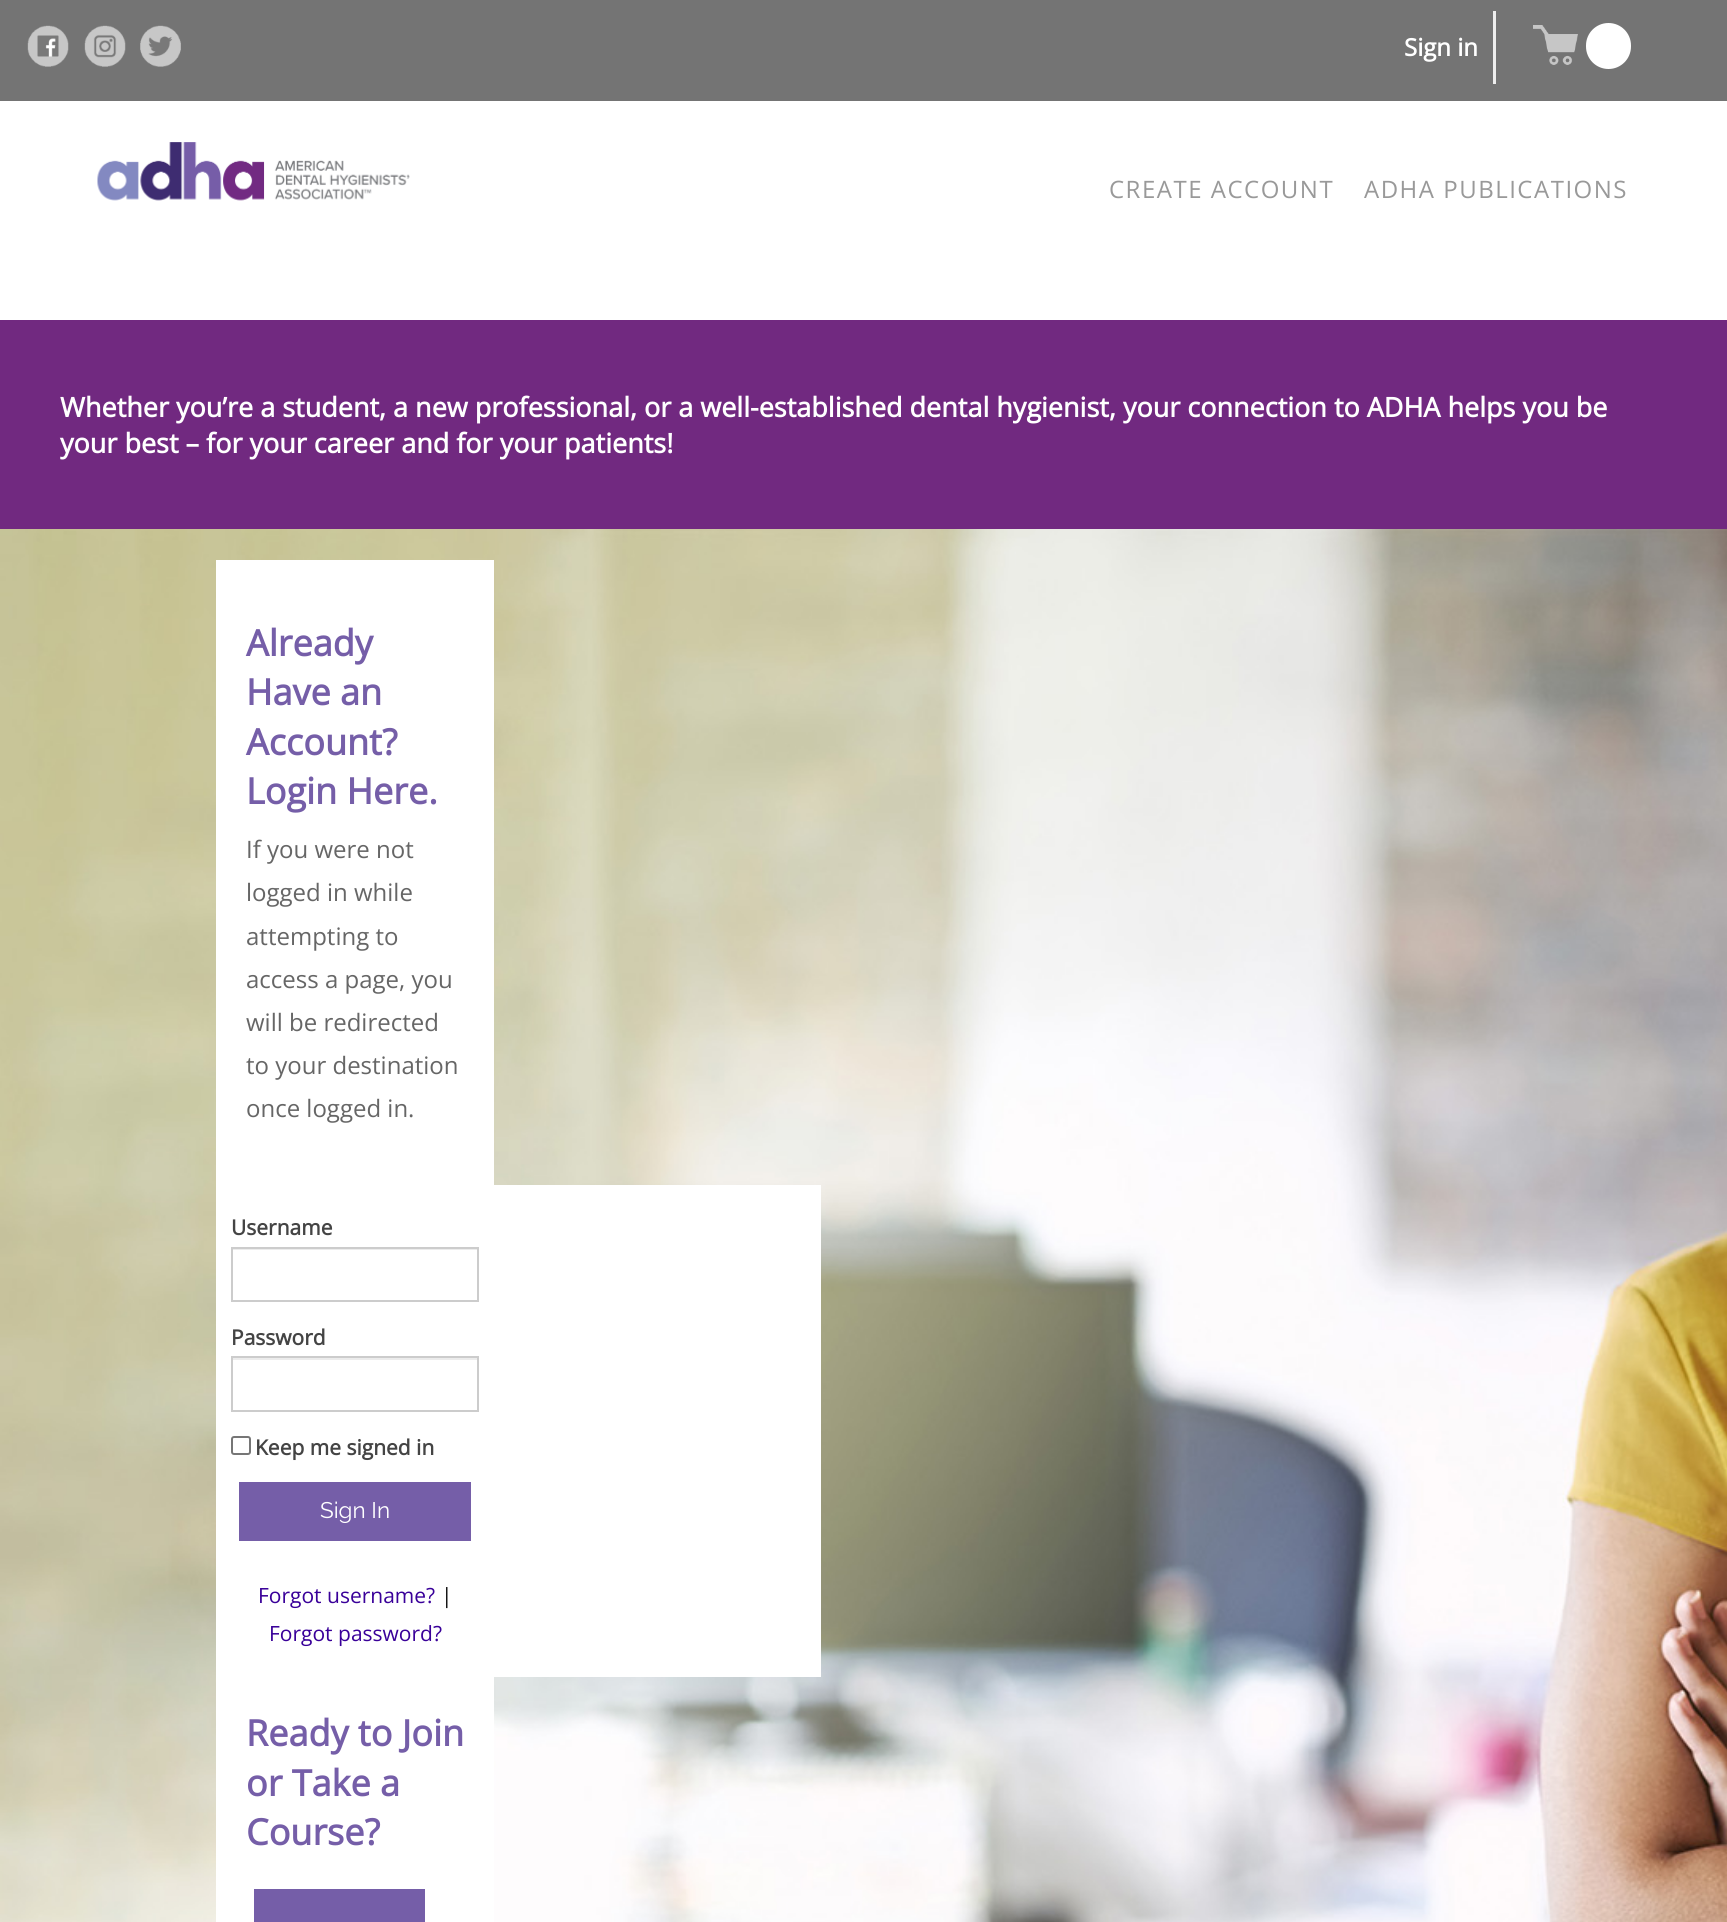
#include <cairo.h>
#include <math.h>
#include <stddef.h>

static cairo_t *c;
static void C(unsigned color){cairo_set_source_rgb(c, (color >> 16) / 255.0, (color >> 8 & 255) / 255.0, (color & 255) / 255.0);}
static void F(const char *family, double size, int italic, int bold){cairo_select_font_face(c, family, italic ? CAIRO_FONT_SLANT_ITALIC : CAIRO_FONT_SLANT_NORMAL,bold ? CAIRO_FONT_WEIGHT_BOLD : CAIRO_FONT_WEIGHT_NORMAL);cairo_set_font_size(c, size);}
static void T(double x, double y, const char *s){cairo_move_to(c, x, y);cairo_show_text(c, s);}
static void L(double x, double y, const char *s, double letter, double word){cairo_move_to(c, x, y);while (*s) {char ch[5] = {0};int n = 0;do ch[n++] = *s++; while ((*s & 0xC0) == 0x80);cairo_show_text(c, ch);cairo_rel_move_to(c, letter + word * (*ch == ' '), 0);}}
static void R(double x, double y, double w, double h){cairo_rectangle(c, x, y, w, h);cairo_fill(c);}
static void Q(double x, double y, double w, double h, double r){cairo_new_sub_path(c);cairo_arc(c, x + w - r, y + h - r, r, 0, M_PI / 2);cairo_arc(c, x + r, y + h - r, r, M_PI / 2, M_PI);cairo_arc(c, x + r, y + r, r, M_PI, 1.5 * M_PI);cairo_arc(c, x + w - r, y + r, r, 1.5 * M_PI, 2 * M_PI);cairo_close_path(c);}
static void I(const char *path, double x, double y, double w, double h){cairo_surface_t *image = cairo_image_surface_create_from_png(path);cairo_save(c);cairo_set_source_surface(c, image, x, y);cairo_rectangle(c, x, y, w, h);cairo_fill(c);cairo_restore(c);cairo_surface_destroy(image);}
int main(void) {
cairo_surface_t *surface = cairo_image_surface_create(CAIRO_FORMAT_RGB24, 1727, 1922);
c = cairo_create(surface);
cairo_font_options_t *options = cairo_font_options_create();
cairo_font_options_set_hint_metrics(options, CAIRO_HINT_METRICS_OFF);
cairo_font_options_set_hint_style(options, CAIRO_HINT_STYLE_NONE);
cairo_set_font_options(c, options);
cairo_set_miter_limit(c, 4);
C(0xffffff);
cairo_paint(c);
C(0x747474);
R(0,0,1727,101);
I("1.png",27,25,42,42);
I("2.png",84,25,42,42);
I("3.png",140,25,41,42);
C(0xeeeeee);
R(1493,11,3,73);
F("Open Sans",24,0,1);
C(0xffffff);
T(1404,56,"Sign in");
I("4.png",1533,25,45,40);
Q(1586,23,45,46,22.5);
cairo_fill(c);
I("5.png",97,142,313,59);
F("Open Sans",24,0,0);
C(0x999999);
L(1109,198,"CREATE ACCOUNT",1.5,0);
L(1364,198,"ADHA PUBLICATIONS",1.5,0);
C(0x712980);
R(0,320,1727,209);
F("Open Sans",27,0,1);
C(0xffffff);
T(60,417,"Whether you’re a student, a new professional, or a well-established dental hygienist, your connection to ADHA helps you be");
T(60,453,"your best – for your career and for your patients!");
I("6.png",0,529,1727,1393);
R(216,560,278,625);
F("Open Sans",36,0,1);
C(0x755ea8);
T(246,656,"Already");
T(246,705,"Have an");
T(246,755,"Account?");
T(246,804,"Login Here.");
F("Open Sans",24,0,0);
C(0x666666);
T(246,858,"If you were not");
T(246,901,"logged in while");
T(246,945,"attempting to");
T(246,988,"access a page, you");
T(246,1031,"will be redirected");
T(246,1074,"to your destination");
T(246,1117,"once logged in.");
C(0xffffff);
R(216,1185,605,492);
F("Open Sans",21,0,1);
C(0x444444);
T(231,1235,"Username");
C(0xececec);
R(233,1249,244,1);
cairo_rectangle(c,232,1248,246,53);
C(0xcccccc);
cairo_stroke(c);
C(0x444444);
T(231,1345,"Password");
C(0xececec);
R(233,1358,244,2);
cairo_rectangle(c,232,1357,246,54);
C(0xcccccc);
cairo_stroke(c);
Q(232,1437,18,17,2);
C(0x767676);
cairo_stroke(c);
C(0x444444);
T(255,1455,"Keep me signed in");
C(0x755ea8);
R(239,1482,232,59);
F("Raleway Thin",22.5,0,0);
C(0xffffff);
T(320,1518,"Sign In");
F("Open Sans",21,0,0);
C(0x390099);
T(258,1603,"Forgot username?");
C(0x0c0c0c);
T(441,1603,"|");
C(0x390099);
T(269,1641,"Forgot password?");
C(0xffffff);
R(216,1677,278,245);
F("Open Sans",36,0,1);
C(0x755ea8);
T(246,1746,"Ready to Join");
T(246,1796,"or Take a");
T(246,1845,"Course?");
R(254,1889,171,33);
cairo_surface_write_to_png(surface, "o.png");
cairo_font_options_destroy(options);
cairo_destroy(c);
cairo_surface_destroy(surface);
return 0;
}
